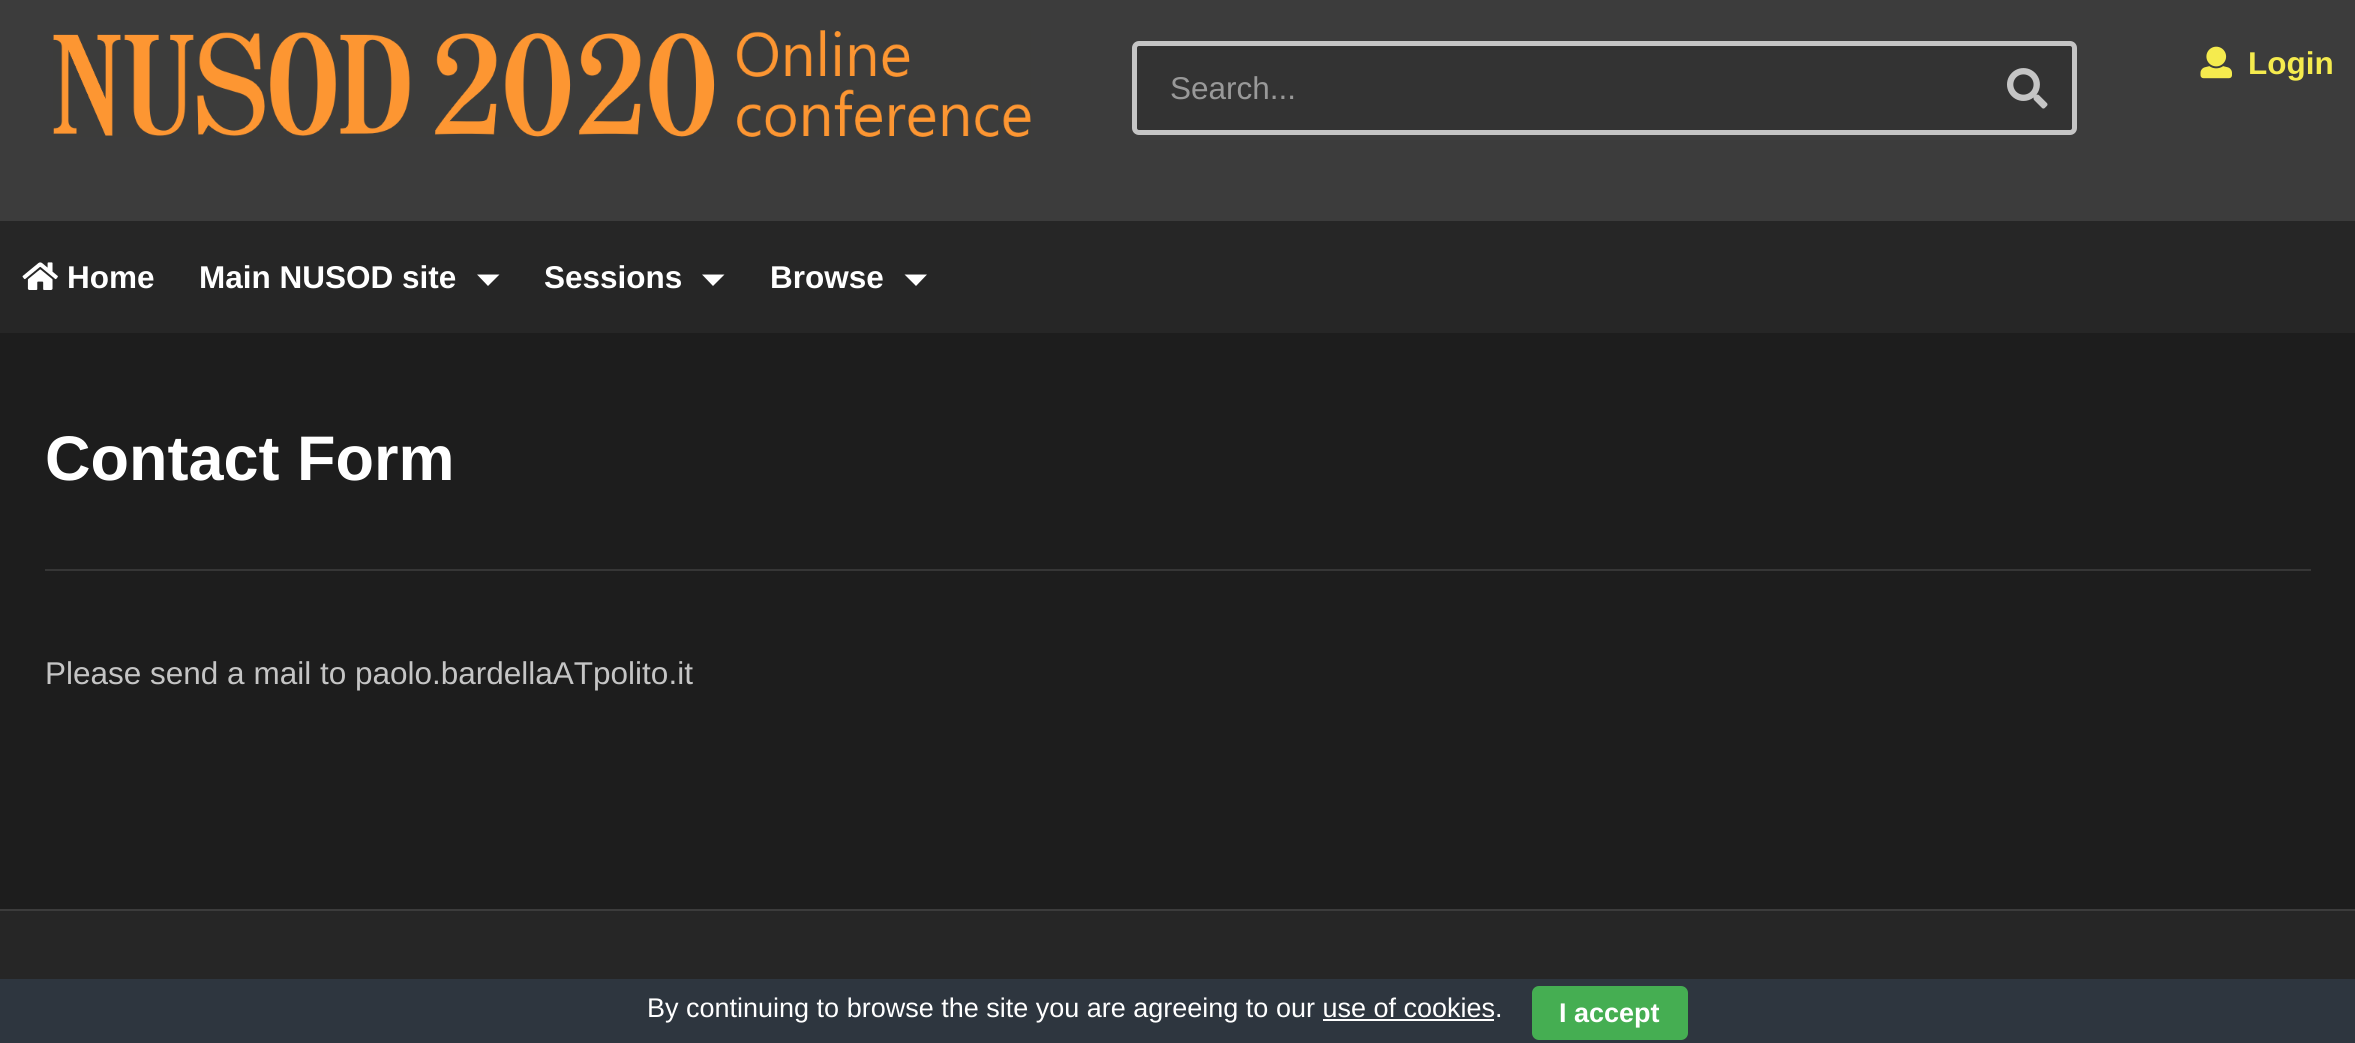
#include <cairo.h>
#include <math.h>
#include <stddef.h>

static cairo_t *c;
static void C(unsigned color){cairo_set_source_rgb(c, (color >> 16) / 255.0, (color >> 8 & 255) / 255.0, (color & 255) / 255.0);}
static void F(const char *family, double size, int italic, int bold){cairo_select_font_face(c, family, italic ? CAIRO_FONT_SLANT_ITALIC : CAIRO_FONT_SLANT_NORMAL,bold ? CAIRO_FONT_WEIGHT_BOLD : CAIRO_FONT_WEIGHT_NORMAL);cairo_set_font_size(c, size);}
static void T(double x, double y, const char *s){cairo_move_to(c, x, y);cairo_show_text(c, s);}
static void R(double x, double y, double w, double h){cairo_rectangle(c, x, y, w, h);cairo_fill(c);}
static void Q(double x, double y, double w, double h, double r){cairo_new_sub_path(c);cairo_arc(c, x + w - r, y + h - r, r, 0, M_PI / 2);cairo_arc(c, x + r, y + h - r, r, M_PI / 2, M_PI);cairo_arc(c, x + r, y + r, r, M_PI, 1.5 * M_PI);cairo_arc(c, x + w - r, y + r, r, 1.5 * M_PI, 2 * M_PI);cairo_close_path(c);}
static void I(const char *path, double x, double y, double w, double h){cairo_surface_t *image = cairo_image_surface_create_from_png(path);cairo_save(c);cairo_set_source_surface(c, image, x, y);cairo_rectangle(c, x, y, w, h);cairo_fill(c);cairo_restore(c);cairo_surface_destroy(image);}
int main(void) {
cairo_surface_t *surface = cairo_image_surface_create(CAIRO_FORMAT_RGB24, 2355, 1043);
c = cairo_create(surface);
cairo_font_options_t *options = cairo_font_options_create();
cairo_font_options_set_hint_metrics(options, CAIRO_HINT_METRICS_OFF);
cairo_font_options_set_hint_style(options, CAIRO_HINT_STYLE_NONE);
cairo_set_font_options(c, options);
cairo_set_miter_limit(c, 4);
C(0x1d1d1d);
cairo_paint(c);
C(0x3c3c3c);
R(0,0,2355,221);
I("1.png",2200,46,32,33);
F("Liberation Sans",31.5,0,1);
C(0xf5eb4e);
T(2248,74,"Login");
I("2.png",53,30,978,107);
C(0x333333);
Q(1134.5,43.5,940,89,4.5);
cairo_fill_preserve(c);
C(0xc5c5c5);
cairo_set_line_width(c,5);
cairo_stroke(c);
F("Liberation Sans",31.5,0,0);
C(0x999999);
T(1170,99,"Search...");
I("3.png",2007,68,41,41);
C(0x262626);
R(0,221,2355,112);
I("4.png",22,262,36,28);
F("Liberation Sans",31.5,0,1);
C(0xffffff);
T(67,288,"Home");
T(199,288,"Main NUSOD site");
cairo_new_path(c);
cairo_move_to(c,477,274.5);
cairo_line_to(c,499.5,274.5);
cairo_line_to(c,488,286);
cairo_close_path(c);
cairo_fill(c);
T(544,288,"Sessions");
cairo_new_path(c);
cairo_move_to(c,702,274.5);
cairo_line_to(c,724.5,274.5);
cairo_line_to(c,713,286);
cairo_close_path(c);
cairo_fill(c);
T(770,288,"Browse");
cairo_new_path(c);
cairo_move_to(c,904.5,274.5);
cairo_line_to(c,927,274.5);
cairo_line_to(c,916,286);
cairo_close_path(c);
cairo_fill(c);
C(0x363636);
R(45,569,2266,2);
F("Liberation Sans",63,0,1);
C(0xffffff);
T(45,480,"Contact Form");
F("Liberation Sans",31.5,0,0);
C(0xc5c5c5);
T(45,684,"Please send a mail to paolo.bardellaATpolito.it");
C(0x262626);
R(0,911,2355,68);
C(0x3c3c3c);
R(0,909,2355,2);
C(0x2e363f);
R(0,979,2355,64);
F("Liberation Sans",27,0,0);
C(0xffffff);
T(647,1017,"By continuing to browse the site you are agreeing to our use of cookies.");
C(0x45ae52);
Q(1532,986,156,54,7);
cairo_fill(c);
F("Liberation Sans",27,0,1);
C(0xffffff);
T(1559,1022,"I accept");
R(1323,1019,171,2);
cairo_surface_write_to_png(surface, "o.png");
cairo_font_options_destroy(options);
cairo_destroy(c);
cairo_surface_destroy(surface);
return 0;
}
